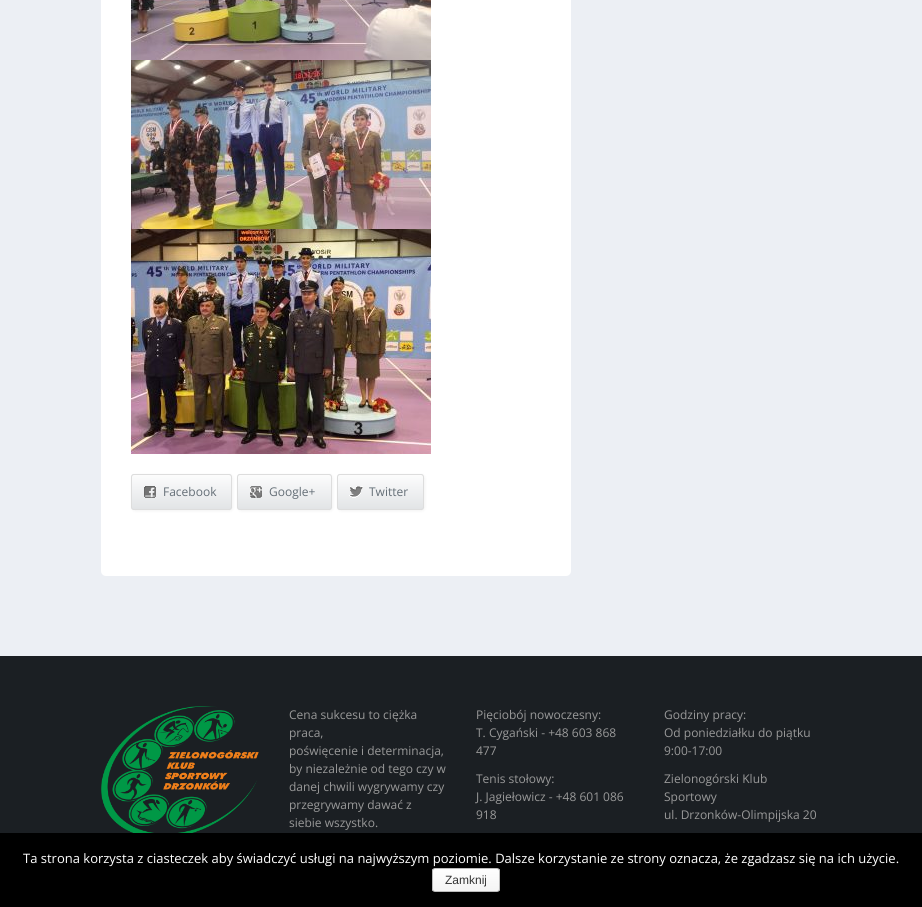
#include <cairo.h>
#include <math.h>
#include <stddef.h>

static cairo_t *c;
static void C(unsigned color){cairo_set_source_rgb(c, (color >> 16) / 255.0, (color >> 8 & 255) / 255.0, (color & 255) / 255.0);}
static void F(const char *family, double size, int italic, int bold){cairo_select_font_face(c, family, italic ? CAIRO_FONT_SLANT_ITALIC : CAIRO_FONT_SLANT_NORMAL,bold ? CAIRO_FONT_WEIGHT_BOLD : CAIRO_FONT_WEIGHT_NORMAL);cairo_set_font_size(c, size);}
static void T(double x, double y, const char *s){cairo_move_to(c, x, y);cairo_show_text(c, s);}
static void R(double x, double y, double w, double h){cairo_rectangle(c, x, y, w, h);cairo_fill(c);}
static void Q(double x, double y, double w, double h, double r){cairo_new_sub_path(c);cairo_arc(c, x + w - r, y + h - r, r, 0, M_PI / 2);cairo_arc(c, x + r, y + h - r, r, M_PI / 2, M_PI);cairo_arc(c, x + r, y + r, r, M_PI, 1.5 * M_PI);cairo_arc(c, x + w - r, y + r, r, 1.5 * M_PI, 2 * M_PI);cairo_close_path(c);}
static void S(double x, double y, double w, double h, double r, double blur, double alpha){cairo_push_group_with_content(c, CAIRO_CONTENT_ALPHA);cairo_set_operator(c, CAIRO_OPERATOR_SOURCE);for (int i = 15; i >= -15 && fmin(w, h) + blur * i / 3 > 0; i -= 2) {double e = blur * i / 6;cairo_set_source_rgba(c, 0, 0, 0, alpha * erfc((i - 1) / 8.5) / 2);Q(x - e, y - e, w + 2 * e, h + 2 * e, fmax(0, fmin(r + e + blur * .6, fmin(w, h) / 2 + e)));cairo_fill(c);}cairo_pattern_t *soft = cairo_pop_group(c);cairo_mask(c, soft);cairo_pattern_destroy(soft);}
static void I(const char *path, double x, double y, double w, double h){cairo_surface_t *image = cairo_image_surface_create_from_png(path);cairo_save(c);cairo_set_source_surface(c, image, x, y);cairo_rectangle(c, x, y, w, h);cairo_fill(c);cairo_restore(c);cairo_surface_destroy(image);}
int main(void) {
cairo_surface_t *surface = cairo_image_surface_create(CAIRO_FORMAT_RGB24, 922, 907);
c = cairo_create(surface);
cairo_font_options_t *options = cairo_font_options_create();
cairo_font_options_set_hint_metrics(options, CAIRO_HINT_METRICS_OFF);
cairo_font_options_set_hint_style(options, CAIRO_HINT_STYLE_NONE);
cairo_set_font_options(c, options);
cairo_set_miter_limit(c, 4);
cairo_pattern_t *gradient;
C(0xeceff4);
cairo_paint(c);
C(0xffffff);
Q(101,-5,470,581,5);
cairo_fill(c);
I("1.png",131,0,300,60);
I("2.png",131,60,300,169);
I("3.png",131,229,300,225);
C(0x000000);
S(132,475,101,36,3,1.5,.05);
C(0xe2e4e6);
Q(131,474,101,36,3);
cairo_fill(c);
cairo_save(c);
Q(131,474,101,36,3);
cairo_clip(c);
gradient = cairo_pattern_create_linear(182,475,182,509);
cairo_pattern_add_color_stop_rgba(gradient,0,1,1,1,.9);
cairo_pattern_add_color_stop_rgba(gradient,1,1,1,1,0);
cairo_set_source(c,gradient);
cairo_pattern_destroy(gradient);
R(131,475,101,33);
cairo_restore(c);
Q(131.5,474.5,100,35,2.5);
C(0xdddddd);
cairo_set_line_width(c,1);
cairo_stroke(c);
I("4.png",144,486,12,12);
F("Open Sans",12,0,0);
C(0x646e76);
T(163,496,"Facebook");
C(0x000000);
S(238,475,95,36,3,1.5,.05);
C(0xe2e4e6);
Q(237,474,95,36,3);
cairo_fill(c);
cairo_save(c);
Q(237,474,95,36,3);
cairo_clip(c);
gradient = cairo_pattern_create_linear(285,475,285,509);
cairo_pattern_add_color_stop_rgba(gradient,0,1,1,1,.9);
cairo_pattern_add_color_stop_rgba(gradient,1,1,1,1,0);
cairo_set_source(c,gradient);
cairo_pattern_destroy(gradient);
R(237,475,95,33);
cairo_restore(c);
Q(237.5,474.5,94,35,2.5);
C(0xdddddd);
cairo_stroke(c);
I("5.png",250,486,12,12);
C(0x646e76);
T(269,496,"Google+");
C(0x000000);
S(338,475,87,36,3,1.5,.05);
C(0xe2e4e6);
Q(337,474,87,36,3);
cairo_fill(c);
cairo_save(c);
Q(337,474,87,36,3);
cairo_clip(c);
gradient = cairo_pattern_create_linear(381,475,381,509);
cairo_pattern_add_color_stop_rgba(gradient,0,1,1,1,.9);
cairo_pattern_add_color_stop_rgba(gradient,1,1,1,1,0);
cairo_set_source(c,gradient);
cairo_pattern_destroy(gradient);
R(337,475,87,33);
cairo_restore(c);
Q(337.5,474.5,86,35,2.5);
C(0xdddddd);
cairo_stroke(c);
I("6.png",349,486,14,12);
C(0x646e76);
T(369,496,"Twitter");
C(0x1b1f23);
R(0,656,922,177);
I("7.png",101,706,158,127);
C(0x999999);
T(289,719,"Cena sukcesu to ciężka");
T(289,737,"praca,");
T(289,755,"poświęcenie i determinacja,");
T(289,773,"by niezależnie od tego czy w");
T(289,791,"danej chwili wygrywamy czy");
T(289,809,"przegrywamy dawać z");
T(289,827,"siebie wszystko.");
T(476,719,"Pięciobój nowoczesny:");
T(476,737,"T. Cygański - +48 603 868");
T(476,755,"477");
T(476,783,"Tenis stołowy:");
T(476,801,"J. Jagiełowicz - +48 601 086");
T(476,819,"918");
T(664,719,"Godziny pracy:");
T(664,737,"Od poniedziałku do piątku");
T(664,755,"9:00-17:00");
T(664,783,"Zielonogórski Klub");
T(664,801,"Sportowy");
T(664,819,"ul. Drzonków-Olimpijska 20");
C(0x000000);
R(0,833,922,74);
F("Open Sans",13,0,0);
C(0xffffff);
T(23,863,"Ta strona korzysta z ciasteczek aby świadczyć usługi na najwyższym poziomie. Dalsze korzystanie ze strony oznacza, że zgadzasz się na ich użycie.");
cairo_save(c);
Q(432,868,68,24,3);
cairo_clip(c);
gradient = cairo_pattern_create_linear(466,869,466,891);
cairo_pattern_add_color_stop_rgba(gradient,0,0.996,0.996,0.996,1);
cairo_pattern_add_color_stop_rgba(gradient,1,0.957,0.957,0.957,1);
cairo_set_source(c,gradient);
cairo_pattern_destroy(gradient);
R(432,869,68,22);
cairo_restore(c);
Q(432.5,868.5,67,23,2.5);
C(0xbbbbbb);
cairo_stroke(c);
F("Liberation Sans",12,0,0);
C(0x333333);
T(445,884,"Zamknij");
cairo_surface_write_to_png(surface, "o.png");
cairo_font_options_destroy(options);
cairo_destroy(c);
cairo_surface_destroy(surface);
return 0;
}
